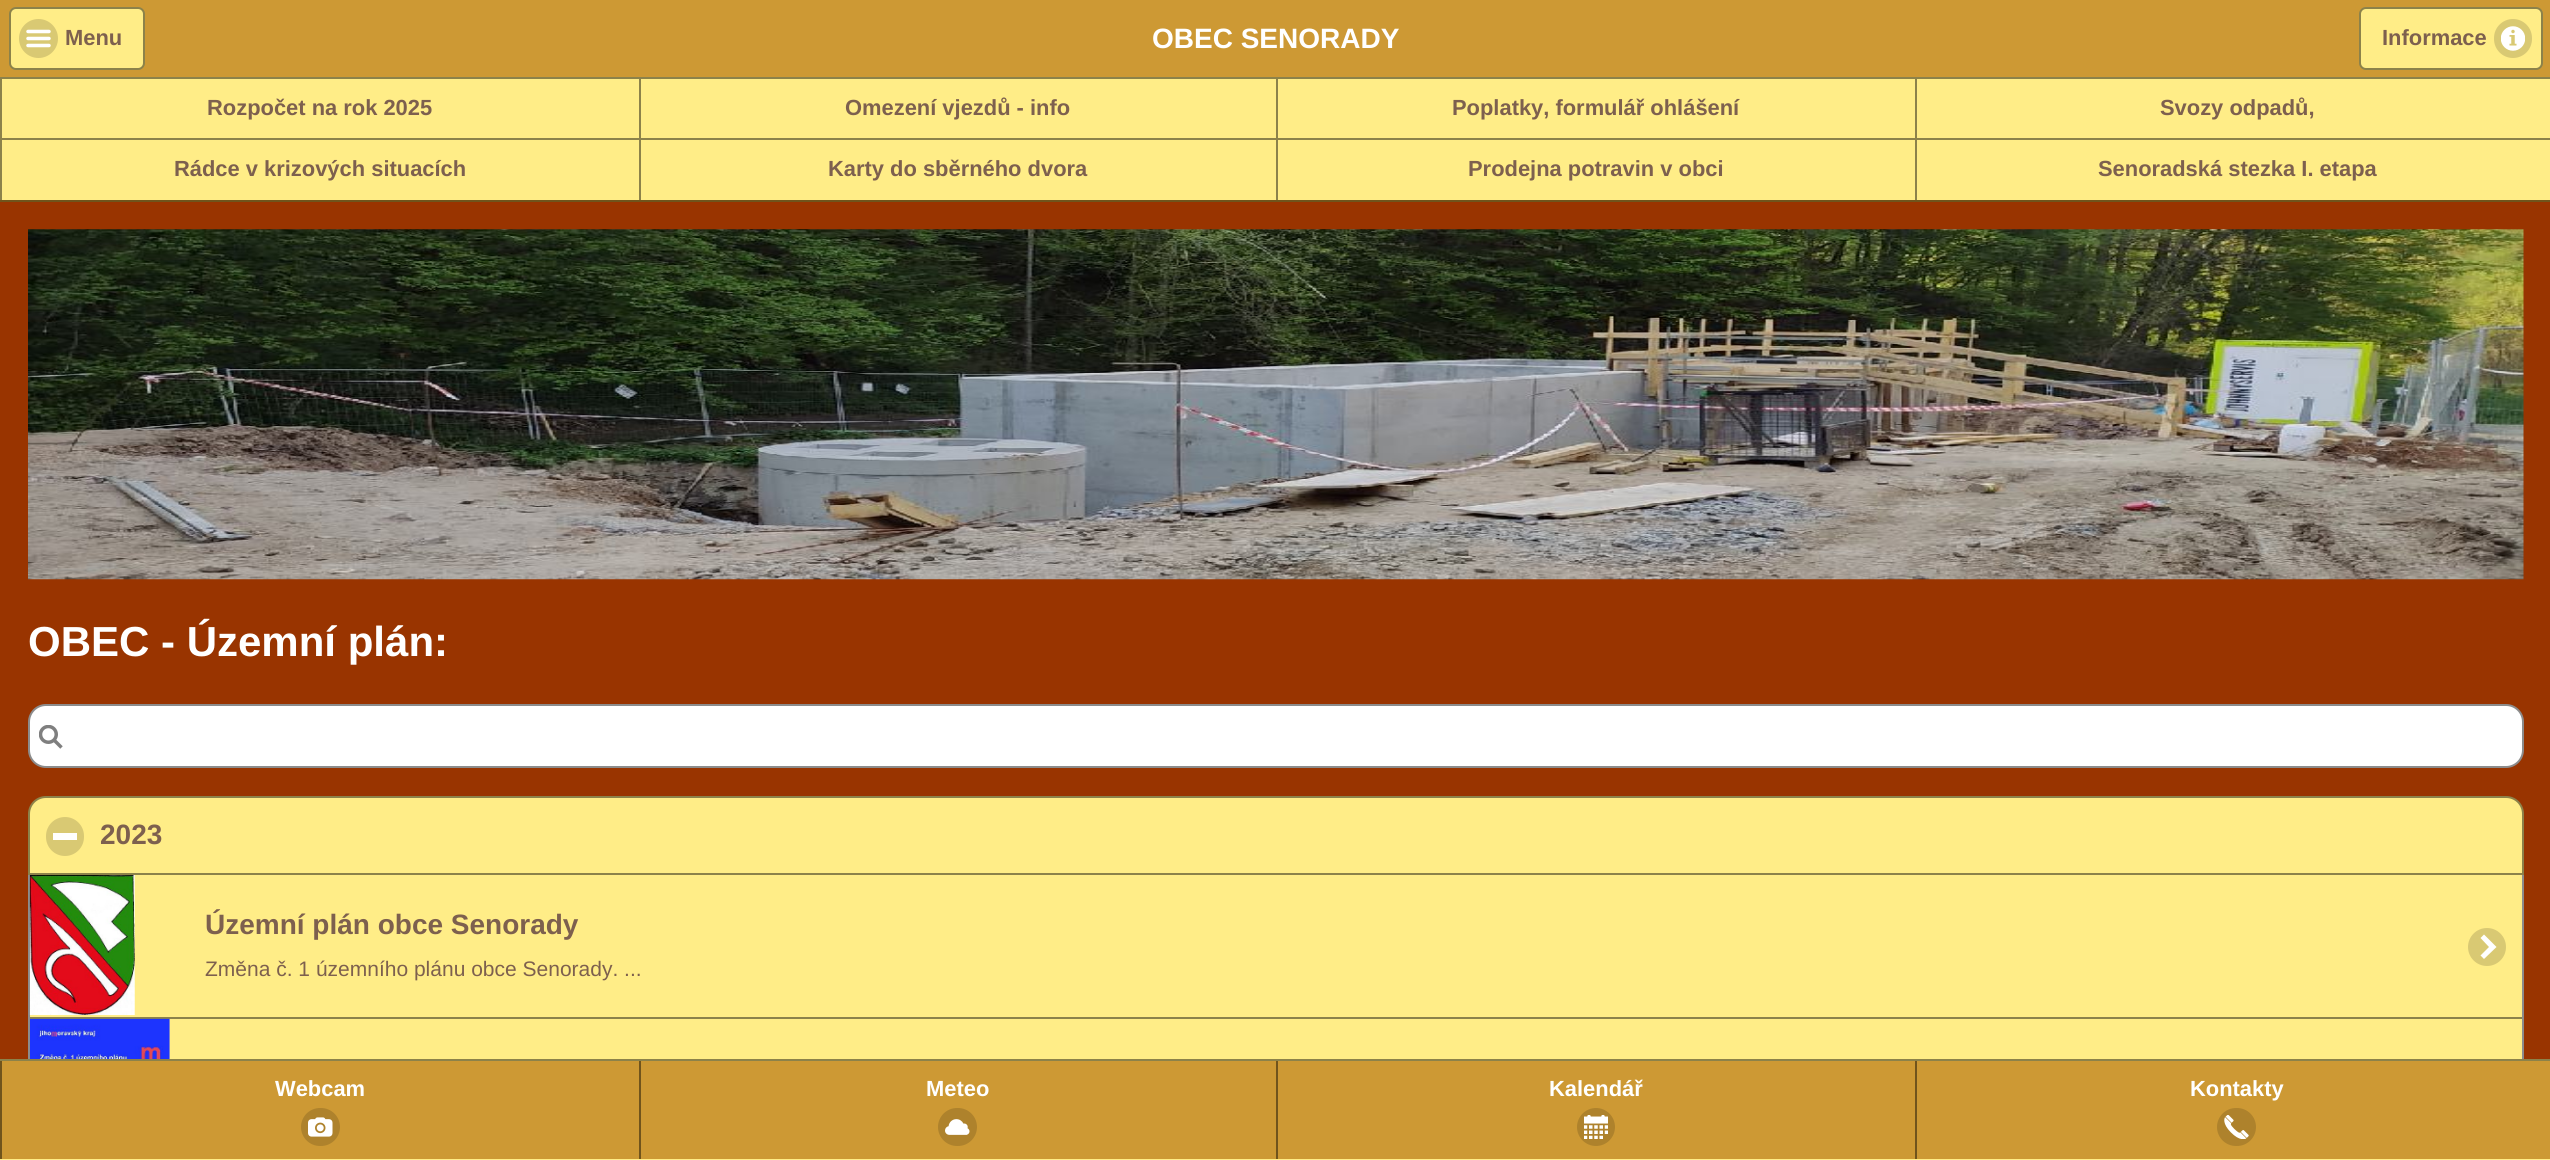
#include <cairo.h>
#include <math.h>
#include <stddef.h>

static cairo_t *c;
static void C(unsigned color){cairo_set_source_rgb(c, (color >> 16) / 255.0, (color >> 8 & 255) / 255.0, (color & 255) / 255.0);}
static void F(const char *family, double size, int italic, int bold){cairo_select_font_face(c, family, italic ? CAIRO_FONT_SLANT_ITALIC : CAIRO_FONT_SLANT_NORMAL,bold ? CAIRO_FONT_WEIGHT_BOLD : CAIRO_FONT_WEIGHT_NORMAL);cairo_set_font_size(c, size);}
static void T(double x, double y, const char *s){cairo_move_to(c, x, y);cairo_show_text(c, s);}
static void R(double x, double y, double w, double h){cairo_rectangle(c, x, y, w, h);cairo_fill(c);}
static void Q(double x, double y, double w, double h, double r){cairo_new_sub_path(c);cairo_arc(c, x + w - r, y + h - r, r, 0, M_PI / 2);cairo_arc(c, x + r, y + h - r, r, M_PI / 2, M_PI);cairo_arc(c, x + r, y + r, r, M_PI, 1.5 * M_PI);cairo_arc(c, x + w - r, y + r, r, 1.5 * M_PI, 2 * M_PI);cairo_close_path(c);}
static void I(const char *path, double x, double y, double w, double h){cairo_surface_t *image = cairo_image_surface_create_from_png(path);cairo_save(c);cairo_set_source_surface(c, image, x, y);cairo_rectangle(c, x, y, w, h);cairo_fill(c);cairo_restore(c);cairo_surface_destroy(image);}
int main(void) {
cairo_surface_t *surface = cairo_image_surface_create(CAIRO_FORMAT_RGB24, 2550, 1160);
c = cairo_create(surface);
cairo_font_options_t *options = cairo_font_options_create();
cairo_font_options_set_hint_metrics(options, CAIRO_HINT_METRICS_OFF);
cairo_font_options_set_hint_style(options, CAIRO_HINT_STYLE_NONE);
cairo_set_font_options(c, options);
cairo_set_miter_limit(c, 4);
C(0x993400);
cairo_paint(c);
C(0xcd9934);
R(0,0,2550,77);
C(0x70541c);
R(0,200,2550,2);
C(0xffed87);
Q(10,8,134,61,6);
cairo_fill_preserve(c);
C(0x8c824a);
cairo_stroke(c);
C(0xd9c973);
cairo_arc(c,38.5,38.5,19.5,0,2 * M_PI);
cairo_fill(c);
I("1.png",26,29,25,19);
F("Liberation Sans",21.9,0,1);
C(0x7d604e);
T(65,45,"Menu");
F("Liberation Sans",28,0,1);
C(0xffffff);
T(1152,48,"OBEC SENORADY");
C(0xffed87);
Q(2360,8,182,61,6);
cairo_fill_preserve(c);
C(0x8c824a);
cairo_stroke(c);
F("Liberation Sans",21.9,0,1);
C(0x7d604e);
T(2382,45,"Informace");
C(0xd9c973);
Q(2494,19,38,39,19);
cairo_fill(c);
I("2.png",2501,26,24,25);
C(0xffed87);
R(2,79,637,59);
C(0x8c824a);
R(0,77,2550,2);
R(0,77,2,61);
C(0x7d604e);
T(207,115,"Rozpočet na rok 2025");
C(0xffed87);
R(641,79,635,59);
C(0x8c824a);
R(639,77,2,61);
C(0x7d604e);
T(845,115,"Omezení vjezdů - info");
C(0xffed87);
R(1278,79,637,59);
C(0x8c824a);
R(1276,77,2,61);
C(0x7d604e);
T(1452,115,"Poplatky, formulář ohlášení");
C(0xffed87);
R(1917,79,633,59);
C(0x8c824a);
R(1915,77,2,61);
C(0x7d604e);
T(2160,115,"Svozy odpadů,");
C(0xffed87);
R(2,140,637,60);
C(0x8c824a);
R(0,138,2550,2);
R(0,138,2,62);
C(0x7d604e);
T(174,176,"Rádce v krizových situacích");
C(0xffed87);
R(641,140,635,60);
C(0x8c824a);
R(639,138,2,62);
C(0x7d604e);
T(828,176,"Karty do sběrného dvora");
C(0xffed87);
R(1278,140,637,60);
C(0x8c824a);
R(1276,138,2,62);
C(0x7d604e);
T(1468,176,"Prodejna potravin v obci");
C(0xffed87);
R(1917,140,633,60);
C(0x8c824a);
R(1915,138,2,62);
C(0x7d604e);
T(2098,176,"Senoradská stezka I. etapa");
I("3.png",28,229,2496,351);
F("Liberation Sans",42,0,1);
C(0xffffff);
T(28,656,"OBEC - Územní plán:");
Q(29,705,2494,62,17);
cairo_fill_preserve(c);
C(0x8c8c8c);
cairo_stroke(c);
I("4.png",39,725,24,24);
C(0xffed87);
cairo_new_path(c);
cairo_move_to(c,46,797);
cairo_line_to(c,2506,797);
cairo_curve_to(c,2515.5,797,2523,804.5,2523,814);
cairo_line_to(c,2523,874);
cairo_line_to(c,29,874);
cairo_line_to(c,29,814);
cairo_curve_to(c,29,804.5,36.5,797,46,797);
cairo_close_path(c);
cairo_fill_preserve(c);
C(0x8c824a);
cairo_stroke(c);
C(0xd9c973);
Q(46,817,38,39,19);
cairo_fill(c);
C(0xffffff);
R(53,833,24,7);
F("Liberation Sans",28,0,1);
C(0x7d604e);
T(100,844,"2023");
C(0x8c8c8c);
cairo_set_fill_rule(c,CAIRO_FILL_RULE_EVEN_ODD);
cairo_new_path(c);
cairo_move_to(c,28,875);
cairo_line_to(c,2524,875);
cairo_line_to(c,2524,1143);
cairo_curve_to(c,2524,1153,2516,1160,2507,1160);
cairo_line_to(c,45,1160);
cairo_curve_to(c,36,1160,28,1153,28,1143);
cairo_close_path(c);
cairo_move_to(c,30,875);
cairo_line_to(c,2522,875);
cairo_line_to(c,2522,1143);
cairo_curve_to(c,2522,1152,2515,1158,2507,1158);
cairo_line_to(c,45,1158);
cairo_curve_to(c,36,1158,30,1152,30,1143);
cairo_close_path(c);
cairo_fill(c);
C(0xffed87);
R(30,875,2492,142);
I("5.png",29,875,106,140);
C(0x7d604e);
T(205,934,"Územní plán obce Senorady");
C(0xd9c973);
cairo_new_path(c);
cairo_arc(c,2487,947,19,0,2 * M_PI);
cairo_fill(c);
C(0xffffff);
cairo_set_fill_rule(c,CAIRO_FILL_RULE_WINDING);
cairo_new_path(c);
cairo_move_to(c,2480.5,938);
cairo_line_to(c,2489,947);
cairo_line_to(c,2480.5,955.5);
cairo_line_to(c,2484,959);
cairo_line_to(c,2496.5,947);
cairo_line_to(c,2484,934.5);
cairo_close_path(c);
cairo_fill(c);
F("Liberation Sans",21,0,0);
C(0x7d604e);
T(205,976,"Změna č. 1 územního plánu obce Senorady. ...");
C(0xffed87);
R(169,1019,2353,40);
C(0x8c824a);
R(30,1017,2492,2);
I("6.png",30,1018,140,41);
C(0xffed87);
R(0,1159,2550,1);
C(0x8c824a);
R(0,1059,2550,2);
C(0xcd9934);
R(2,1061,637,98);
C(0x70541c);
R(0,1061,2,98);
F("Liberation Sans",21.9,0,1);
C(0xffffff);
T(275,1096,"Webcam");
C(0xae822c);
Q(301,1108,39,38,19);
cairo_fill(c);
I("7.png",308,1117,25,20);
C(0xcd9934);
R(641,1061,635,98);
C(0x70541c);
R(639,1061,2,98);
C(0xffffff);
T(926,1096,"Meteo");
C(0xae822c);
Q(938,1108,39,38,19);
cairo_fill(c);
I("8.png",945,1119,25,16);
C(0xcd9934);
R(1278,1061,637,98);
C(0x70541c);
R(1276,1061,2,98);
C(0xffffff);
T(1549,1096,"Kalendář");
C(0xae822c);
cairo_new_path(c);
cairo_arc(c,1596,1127,19,0,2 * M_PI);
cairo_fill(c);
I("9.png",1584,1115,24,24);
C(0xcd9934);
R(1917,1061,633,98);
C(0x70541c);
R(1915,1061,2,98);
C(0xffffff);
T(2190,1096,"Kontakty");
C(0xae822c);
Q(2217,1108,39,38,19);
cairo_fill(c);
I("10.png",2224,1115,25,24);
cairo_surface_write_to_png(surface, "o.png");
cairo_font_options_destroy(options);
cairo_destroy(c);
cairo_surface_destroy(surface);
return 0;
}
